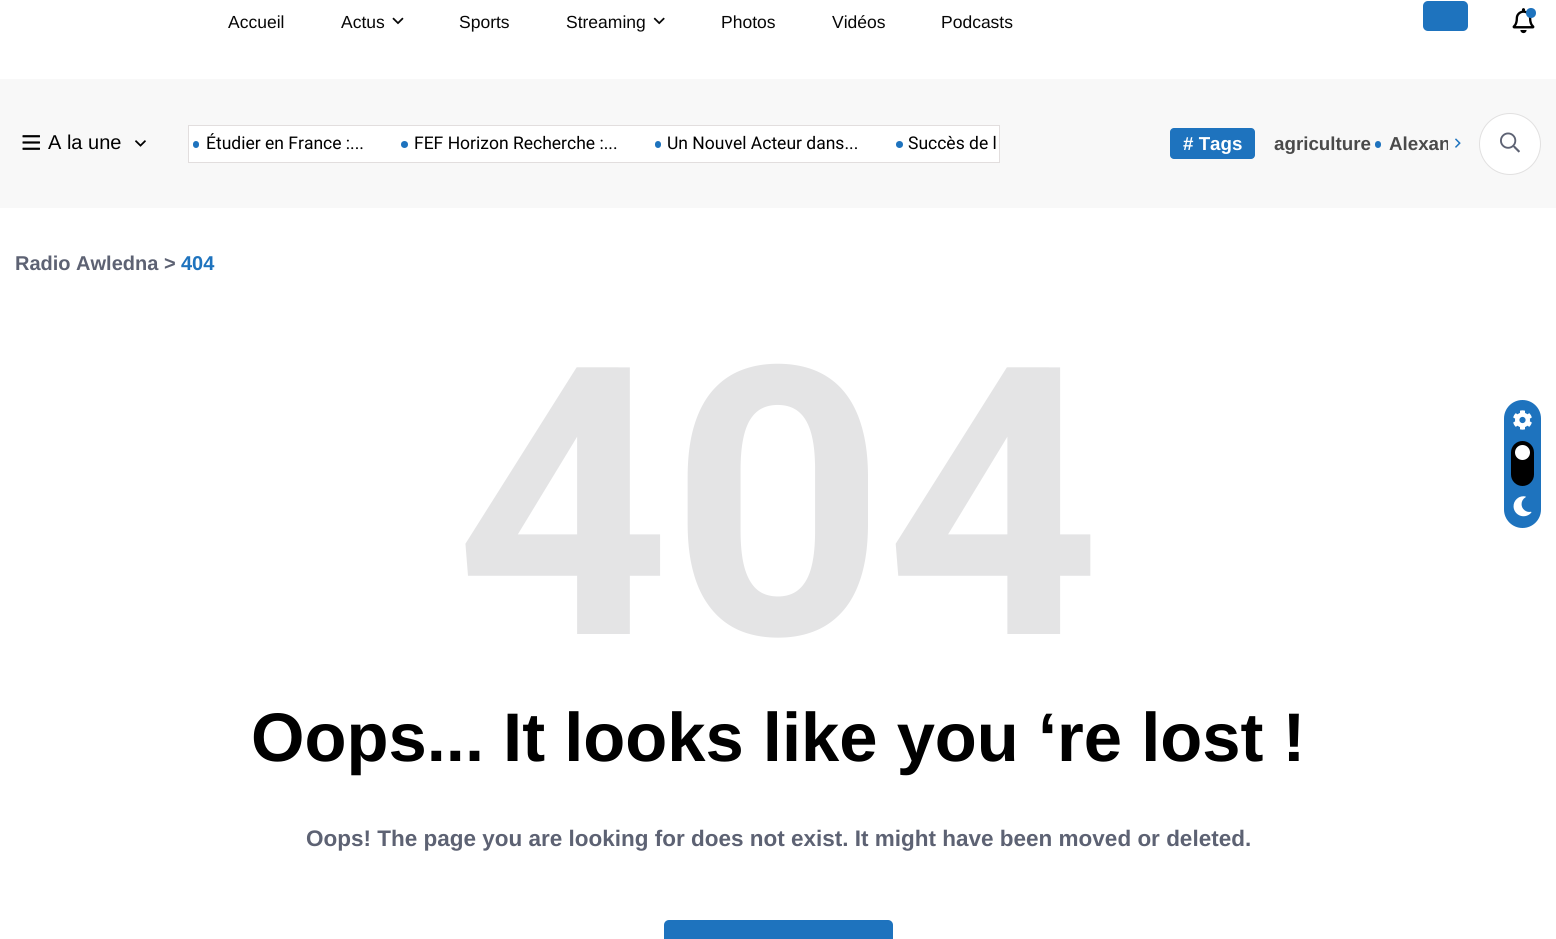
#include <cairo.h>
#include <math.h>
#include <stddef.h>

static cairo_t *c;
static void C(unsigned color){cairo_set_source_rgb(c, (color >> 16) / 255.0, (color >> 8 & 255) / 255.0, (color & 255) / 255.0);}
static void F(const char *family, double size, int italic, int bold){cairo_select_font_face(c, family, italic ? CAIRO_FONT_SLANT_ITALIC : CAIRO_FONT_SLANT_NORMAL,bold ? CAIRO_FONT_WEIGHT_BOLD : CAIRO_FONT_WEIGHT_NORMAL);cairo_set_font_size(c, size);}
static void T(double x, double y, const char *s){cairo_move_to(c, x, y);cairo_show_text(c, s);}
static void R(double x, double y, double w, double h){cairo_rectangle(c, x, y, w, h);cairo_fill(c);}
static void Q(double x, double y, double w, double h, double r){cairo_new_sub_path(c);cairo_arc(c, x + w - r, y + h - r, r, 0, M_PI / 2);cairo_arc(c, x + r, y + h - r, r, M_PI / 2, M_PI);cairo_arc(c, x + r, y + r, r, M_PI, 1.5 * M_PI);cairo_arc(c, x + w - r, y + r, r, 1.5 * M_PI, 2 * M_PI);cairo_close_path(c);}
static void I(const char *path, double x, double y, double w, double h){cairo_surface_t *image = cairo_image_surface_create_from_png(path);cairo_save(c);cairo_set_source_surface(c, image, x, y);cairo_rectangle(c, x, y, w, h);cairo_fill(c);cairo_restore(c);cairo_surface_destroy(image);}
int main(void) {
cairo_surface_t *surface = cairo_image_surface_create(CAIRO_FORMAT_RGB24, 1556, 939);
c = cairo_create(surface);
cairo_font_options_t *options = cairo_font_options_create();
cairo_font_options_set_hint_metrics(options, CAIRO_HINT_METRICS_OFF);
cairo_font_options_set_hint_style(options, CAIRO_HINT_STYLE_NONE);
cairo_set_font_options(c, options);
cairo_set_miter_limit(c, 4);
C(0xffffff);
cairo_paint(c);
F("Liberation Sans",17.5,0,0);
C(0x070707);
T(228,28,"Accueil");
T(341,28,"Actus");
I("1.png",392,17,12,8);
T(459,28,"Sports");
T(566,28,"Streaming");
I("2.png",653,17,12,8);
T(721,28,"Photos");
T(832,28,"Vidéos");
T(941,28,"Podcasts");
C(0x1e73be);
Q(1423,1,45,30,5);
cairo_fill(c);
I("3.png",1512,8,23,26);
cairo_arc(c,1531,13,5,0,2 * M_PI);
cairo_fill(c);
C(0xf8f8f8);
R(0,79,1556,129);
I("4.png",22,135,18,15);
F("Liberation Sans",20,0,0);
C(0x000000);
T(48,149,"A la une");
I("5.png",135,140,11,7);
C(0xffffff);
cairo_rectangle(c,188.5,125.5,811,37);
cairo_fill_preserve(c);
C(0xe2dede);
cairo_set_line_width(c,1);
cairo_stroke(c);
C(0x1e73be);
Q(193,141,6,7,3);
cairo_fill(c);
F("Roboto",17.5,0,0);
C(0x000000);
T(206,149,"Étudier en France :...");
C(0x1e73be);
cairo_new_path(c);
cairo_arc(c,404.5,144.5,3.5,0,2 * M_PI);
cairo_fill(c);
C(0x000000);
T(414,149,"FEF Horizon Recherche :...");
C(0x1e73be);
Q(655,141,6,7,3);
cairo_fill(c);
C(0x000000);
T(667,149,"Un Nouvel Acteur dans...");
C(0x1e73be);
cairo_new_path(c);
cairo_arc(c,899.5,144.5,3.5,0,2 * M_PI);
cairo_fill(c);
C(0x000000);
T(908,149,"Succès de l");
C(0x1e73be);
Q(1170,128,85,31,4);
cairo_fill(c);
F("Liberation Sans",18.75,0,1);
C(0xffffff);
T(1183,150,"# Tags");
C(0x4a4a4a);
T(1274,150,"agriculture");
C(0x1e73be);
Q(1375,141,6,7,3);
cairo_fill(c);
cairo_save(c);
cairo_rectangle(c,1270,89,178,109);
cairo_clip(c);
C(0x4a4a4a);
T(1389,150,"Alexan");
cairo_restore(c);
I("6.png",1455,138,6,10);
C(0xffffff);
cairo_arc(c,1510,144,30.5,0,2 * M_PI);
cairo_fill_preserve(c);
C(0xe1e0e0);
cairo_stroke(c);
I("7.png",1500,132,20,21);
F("Liberation Sans",20,0,1);
C(0x5d6273);
T(15,270,"Radio Awledna >");
C(0x1e73be);
T(181,270,"404");
F("Roboto",375,0,1);
C(0xe4e4e5);
T(455,634,"404");
F("Liberation Sans",68.75,0,1);
C(0x000000);
T(251,761,"Oops... It looks like you ‘re lost !");
F("Liberation Sans",22.5,0,1);
C(0x5d6273);
T(306,846,"Oops! The page you are looking for does not exist. It might have been moved or deleted.");
C(0x1e73be);
Q(664,920,229,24,5);
cairo_fill(c);
Q(1504,400,37,128,18.5);
cairo_fill(c);
I("8.png",1513,410,19,20);
C(0x000000);
Q(1511,441,23,45,11.5);
cairo_fill(c);
C(0xffffff);
cairo_arc(c,1522.5,452.5,7.5,0,2 * M_PI);
cairo_fill(c);
I("9.png",1513,496,19,21);
cairo_surface_write_to_png(surface, "o.png");
cairo_font_options_destroy(options);
cairo_destroy(c);
cairo_surface_destroy(surface);
return 0;
}
